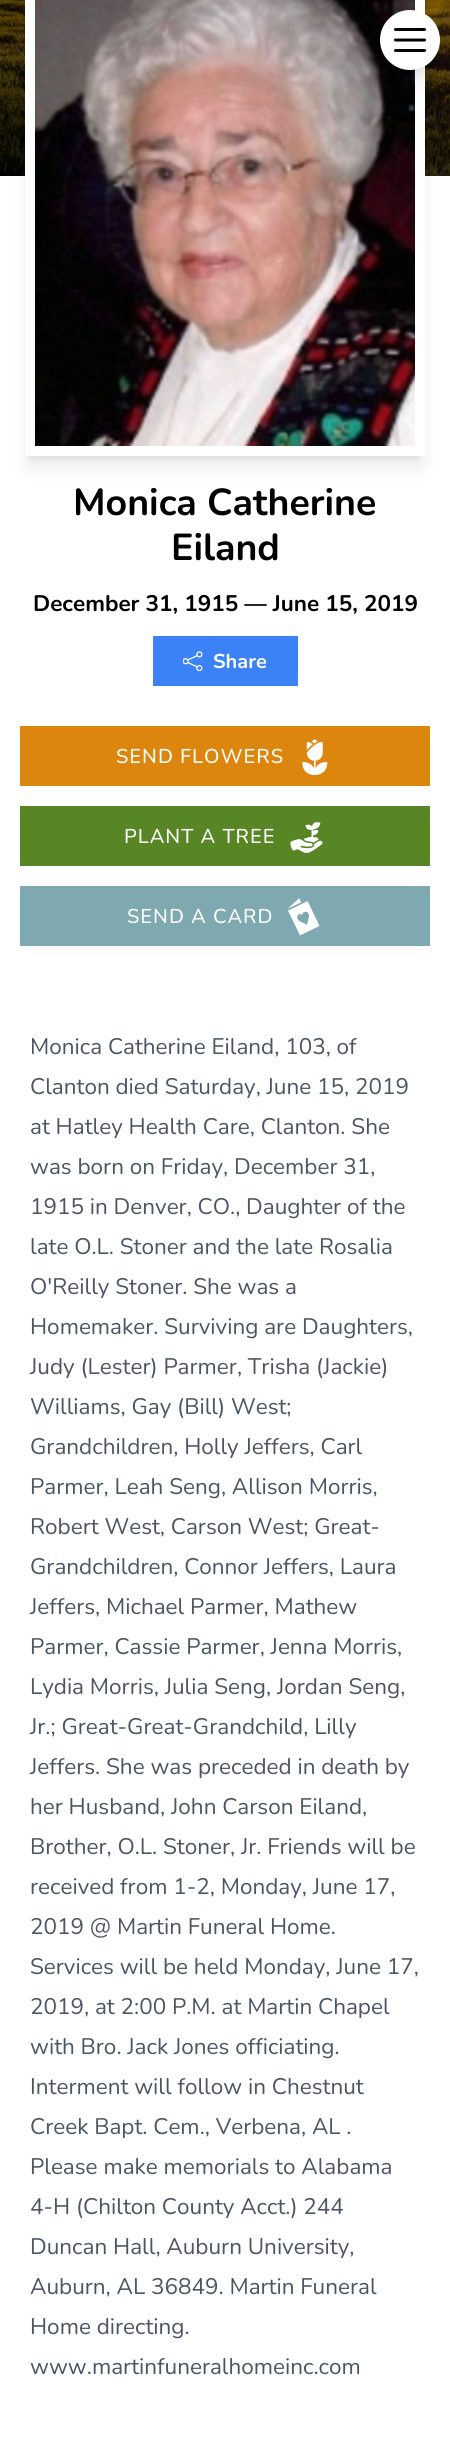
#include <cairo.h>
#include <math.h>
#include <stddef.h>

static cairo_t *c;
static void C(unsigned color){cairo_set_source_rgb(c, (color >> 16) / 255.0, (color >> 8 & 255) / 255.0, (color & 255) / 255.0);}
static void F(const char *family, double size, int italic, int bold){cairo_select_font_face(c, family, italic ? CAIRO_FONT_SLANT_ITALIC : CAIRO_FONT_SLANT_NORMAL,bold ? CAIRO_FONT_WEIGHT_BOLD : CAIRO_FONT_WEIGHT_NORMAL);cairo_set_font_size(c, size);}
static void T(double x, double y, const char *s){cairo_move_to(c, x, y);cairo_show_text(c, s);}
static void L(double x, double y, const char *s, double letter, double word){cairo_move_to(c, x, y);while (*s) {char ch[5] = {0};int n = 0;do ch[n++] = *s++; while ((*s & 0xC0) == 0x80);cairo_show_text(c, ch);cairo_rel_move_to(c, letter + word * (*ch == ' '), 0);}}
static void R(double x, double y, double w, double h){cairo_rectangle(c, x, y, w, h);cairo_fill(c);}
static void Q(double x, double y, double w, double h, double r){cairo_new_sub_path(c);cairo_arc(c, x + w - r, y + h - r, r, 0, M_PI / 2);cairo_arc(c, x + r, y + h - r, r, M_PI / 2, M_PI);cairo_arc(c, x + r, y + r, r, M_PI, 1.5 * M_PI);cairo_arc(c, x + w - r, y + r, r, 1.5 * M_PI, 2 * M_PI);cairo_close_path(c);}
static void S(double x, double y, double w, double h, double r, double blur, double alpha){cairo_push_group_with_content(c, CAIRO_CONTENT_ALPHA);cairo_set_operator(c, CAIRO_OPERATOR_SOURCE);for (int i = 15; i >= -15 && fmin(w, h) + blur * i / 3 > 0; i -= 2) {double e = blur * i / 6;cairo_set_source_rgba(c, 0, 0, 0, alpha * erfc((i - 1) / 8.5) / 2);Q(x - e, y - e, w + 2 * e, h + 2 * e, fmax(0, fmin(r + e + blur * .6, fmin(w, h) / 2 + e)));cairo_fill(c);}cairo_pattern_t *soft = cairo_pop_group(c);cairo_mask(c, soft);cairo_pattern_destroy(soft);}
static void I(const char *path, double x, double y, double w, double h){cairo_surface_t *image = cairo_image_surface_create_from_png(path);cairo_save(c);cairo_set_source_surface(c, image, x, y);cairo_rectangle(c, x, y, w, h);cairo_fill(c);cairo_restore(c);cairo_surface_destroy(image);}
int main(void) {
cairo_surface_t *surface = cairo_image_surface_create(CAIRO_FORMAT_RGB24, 450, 2437);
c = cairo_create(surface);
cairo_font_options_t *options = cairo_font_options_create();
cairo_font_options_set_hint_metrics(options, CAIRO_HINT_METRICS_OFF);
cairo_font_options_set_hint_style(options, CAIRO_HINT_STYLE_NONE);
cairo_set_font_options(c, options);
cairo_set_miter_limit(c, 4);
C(0xffffff);
cairo_paint(c);
I("1.png",0,0,450,176);
C(0x000000);
S(30,-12,390,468,0,4,.1);
S(29,-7,392,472,0,9.5,.1);
cairo_rectangle(c,30,-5,390,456);
C(0xffffff);
cairo_set_line_width(c,10);
cairo_stroke(c);
I("3.png",35,0,380,446);
C(0x000000);
S(385,20,50,50,25,4,.1);
S(384,26,52,53,26,9.5,.1);
C(0xffffff);
cairo_arc(c,410,40,30,0,2 * M_PI);
cairo_fill(c);
I("2.png",394,28,32,24);
F("Nunito",37.5,0,1);
C(0x000000);
T(73,515,"Monica Catherine");
T(171,560,"Eiland");
F("Nunito",22.5,0,1);
T(33,611,"December 31, 1915 — June 15, 2019");
C(0x3b82f6);
R(153,636,145,50);
I("4.png",183,651,20,20);
F("Nunito",20,0,1);
C(0xffffff);
T(213,668,"Share");
C(0xdc860d);
R(20,726,410,60);
F("Nunito Medium",20,0,0);
C(0xffffff);
L(116,763,"SEND FLOWERS",1,0);
I("5.png",302,739,26,36);
C(0x588624);
R(20,806,410,60);
C(0xffffff);
L(124,843,"PLANT A TREE",1,0);
I("6.png",290,822,33,31);
C(0x7ea9b0);
R(20,886,410,60);
C(0xffffff);
L(127,923,"SEND A CARD",1,0);
I("7.png",287,898,33,38);
F("Nunito",22.5,0,0);
C(0x4b5563);
T(30,1054,"Monica Catherine Eiland, 103, of");
T(30,1094,"Clanton died Saturday, June 15, 2019");
T(30,1134,"at Hatley Health Care, Clanton. She");
T(30,1174,"was born on Friday, December 31,");
T(30,1214,"1915 in Denver, CO., Daughter of the");
T(30,1254,"late O.L. Stoner and the late Rosalia");
T(30,1294,"O'Reilly Stoner. She was a");
T(30,1334,"Homemaker. Surviving are Daughters,");
T(30,1374,"Judy (Lester) Parmer, Trisha (Jackie)");
T(30,1414,"Williams, Gay (Bill) West;");
T(30,1454,"Grandchildren, Holly Jeffers, Carl");
T(30,1494,"Parmer, Leah Seng, Allison Morris,");
T(30,1534,"Robert West, Carson West; Great-");
T(30,1574,"Grandchildren, Connor Jeffers, Laura");
T(30,1614,"Jeffers, Michael Parmer, Mathew");
T(30,1654,"Parmer, Cassie Parmer, Jenna Morris,");
T(30,1694,"Lydia Morris, Julia Seng, Jordan Seng,");
T(30,1734,"Jr.; Great-Great-Grandchild, Lilly");
T(30,1774,"Jeffers. She was preceded in death by");
T(30,1814,"her Husband, John Carson Eiland,");
T(30,1854,"Brother, O.L. Stoner, Jr. Friends will be");
T(30,1894,"received from 1-2, Monday, June 17,");
T(30,1934,"2019 @ Martin Funeral Home.");
T(30,1974,"Services will be held Monday, June 17,");
T(30,2014,"2019, at 2:00 P.M. at Martin Chapel");
T(30,2054,"with Bro. Jack Jones officiating.");
T(30,2094,"Interment will follow in Chestnut");
T(30,2134,"Creek Bapt. Cem., Verbena, AL .");
T(30,2174,"Please make memorials to Alabama");
T(30,2214,"4-H (Chilton County Acct.) 244");
T(30,2254,"Duncan Hall, Auburn University,");
T(30,2294,"Auburn, AL 36849. Martin Funeral");
T(30,2334,"Home directing.");
T(30,2374,"www.martinfuneralhomeinc.com");
cairo_surface_write_to_png(surface, "o.png");
cairo_font_options_destroy(options);
cairo_destroy(c);
cairo_surface_destroy(surface);
return 0;
}
